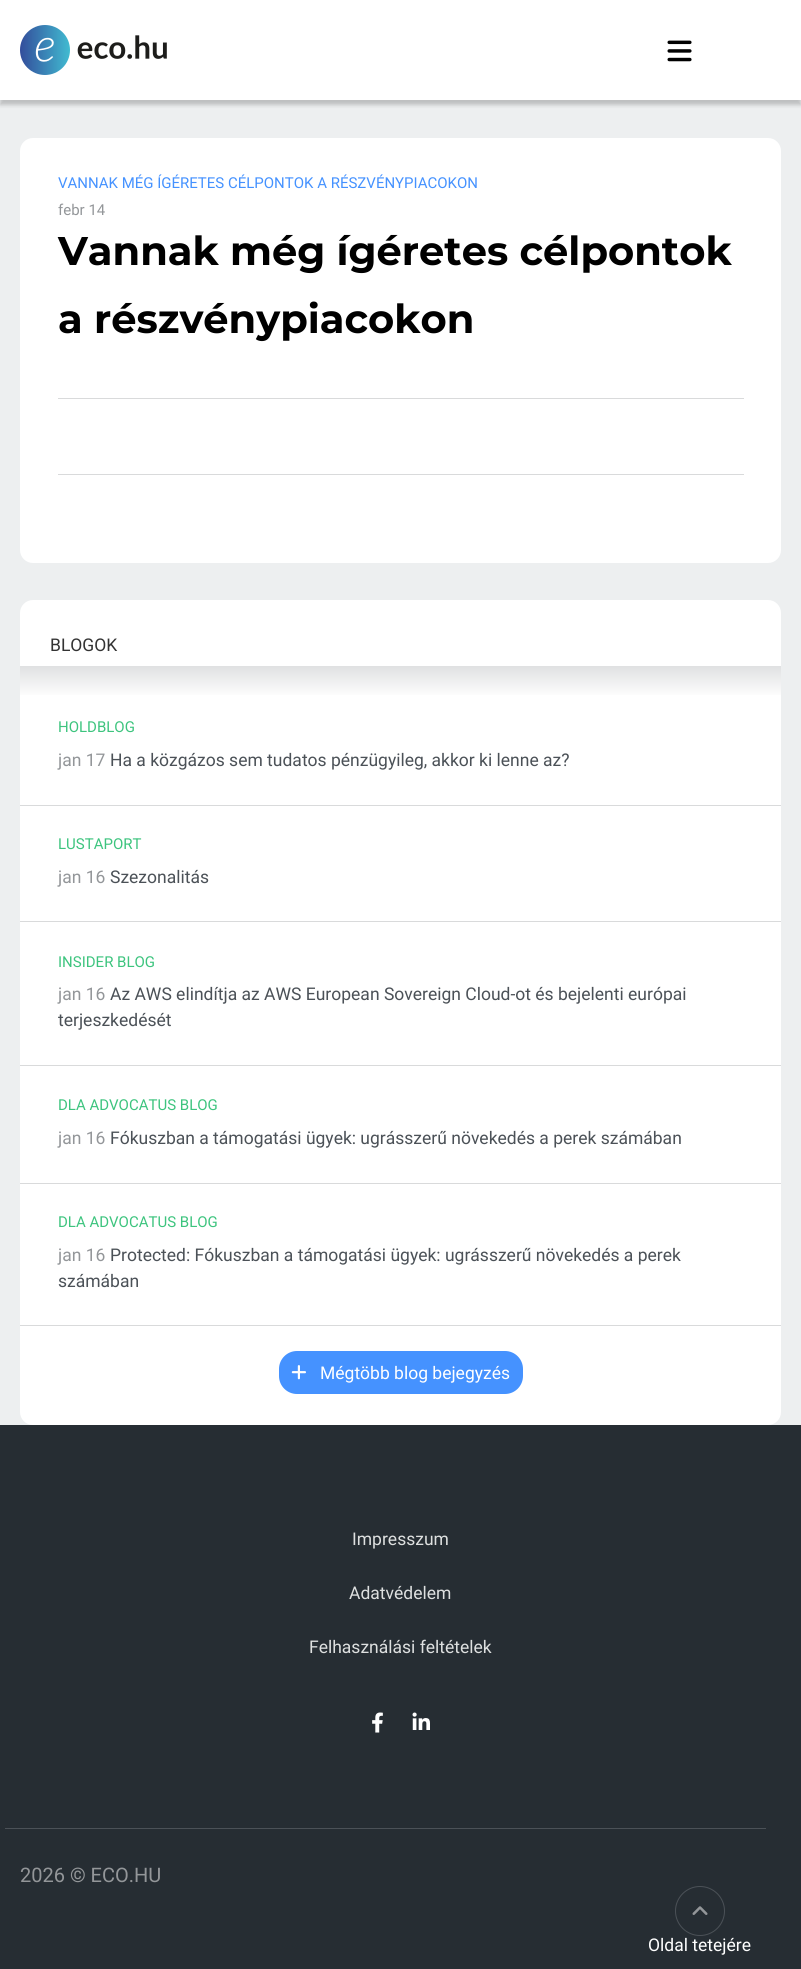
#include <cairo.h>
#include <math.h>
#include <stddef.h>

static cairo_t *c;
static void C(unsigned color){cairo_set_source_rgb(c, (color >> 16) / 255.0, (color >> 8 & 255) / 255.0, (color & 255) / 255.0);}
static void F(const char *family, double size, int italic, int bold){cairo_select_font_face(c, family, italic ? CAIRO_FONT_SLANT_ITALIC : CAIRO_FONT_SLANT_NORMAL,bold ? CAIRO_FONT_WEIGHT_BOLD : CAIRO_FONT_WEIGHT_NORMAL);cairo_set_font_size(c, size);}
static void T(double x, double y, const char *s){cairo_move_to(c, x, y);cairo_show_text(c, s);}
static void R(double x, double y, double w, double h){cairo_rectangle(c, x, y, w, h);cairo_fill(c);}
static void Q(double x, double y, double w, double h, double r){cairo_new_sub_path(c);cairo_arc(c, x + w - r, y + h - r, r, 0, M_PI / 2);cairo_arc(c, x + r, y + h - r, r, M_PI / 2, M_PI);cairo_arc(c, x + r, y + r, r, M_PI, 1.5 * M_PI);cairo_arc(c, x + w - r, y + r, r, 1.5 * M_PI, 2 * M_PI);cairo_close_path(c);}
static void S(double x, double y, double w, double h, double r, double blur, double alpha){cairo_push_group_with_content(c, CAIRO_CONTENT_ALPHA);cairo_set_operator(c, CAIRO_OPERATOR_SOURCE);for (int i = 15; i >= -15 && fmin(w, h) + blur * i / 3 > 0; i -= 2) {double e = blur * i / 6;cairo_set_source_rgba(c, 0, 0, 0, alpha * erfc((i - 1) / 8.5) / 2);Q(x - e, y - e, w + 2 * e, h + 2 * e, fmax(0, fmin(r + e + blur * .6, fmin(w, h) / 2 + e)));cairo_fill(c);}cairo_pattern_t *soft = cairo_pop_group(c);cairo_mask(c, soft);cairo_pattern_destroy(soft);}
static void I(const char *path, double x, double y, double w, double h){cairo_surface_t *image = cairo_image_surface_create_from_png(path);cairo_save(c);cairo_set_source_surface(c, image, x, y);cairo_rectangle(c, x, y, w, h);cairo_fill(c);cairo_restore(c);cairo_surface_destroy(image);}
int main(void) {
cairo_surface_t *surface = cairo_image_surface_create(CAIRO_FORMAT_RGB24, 801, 1969);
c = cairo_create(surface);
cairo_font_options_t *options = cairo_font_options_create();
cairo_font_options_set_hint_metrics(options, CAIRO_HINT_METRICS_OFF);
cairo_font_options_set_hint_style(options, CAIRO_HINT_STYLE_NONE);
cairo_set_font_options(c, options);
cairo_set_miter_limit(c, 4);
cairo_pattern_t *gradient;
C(0xedeff0);
cairo_paint(c);
C(0x000000);
S(0,5,801,100,0,2,.2);
C(0xffffff);
R(0,0,801,100);
I("1.png",20,25,147,50);
I("2.png",667,40,25,22);
Q(20,138,761,425,13);
cairo_fill(c);
F("Roboto",15,0,0);
C(0x4592ff);
T(58,188,"VANNAK MÉG ÍGÉRETES CÉLPONTOK A RÉSZVÉNYPIACOKON");
C(0x939699);
T(58,215,"febr 14");
C(0xd9dadb);
R(58,398,686,1);
F("Montserrat",40,0,1);
C(0x000000);
T(58,265,"Vannak még ígéretes célpontok");
T(58,333,"a részvénypiacokon");
C(0xd9dadb);
R(58,474,686,1);
C(0xffffff);
Q(20,600,761,825,13);
cairo_fill(c);
F("Roboto",17.5,0,0);
C(0x333333);
T(50,651,"BLOGOK");
gradient = cairo_pattern_create_linear(401,631,401,698);
cairo_pattern_add_color_stop_rgba(gradient,0,0.745,0.753,0.761,1);
cairo_pattern_add_color_stop_rgba(gradient,1,1,1,1,1);
cairo_set_source(c,gradient);
cairo_pattern_destroy(gradient);
R(20,666,761,29);
C(0xd9dadb);
R(20,805,761,1);
F("Roboto",15,0,0);
C(0x3dc47e);
T(58,732,"HOLDBLOG");
F("Roboto",17.5,0,0);
C(0x939699);
T(58,766,"jan 17");
C(0x4b5157);
T(110,766,"Ha a közgázos sem tudatos pénzügyileg, akkor ki lenne az?");
C(0xd9dadb);
R(20,921,761,1);
F("Roboto",15,0,0);
C(0x3dc47e);
T(58,849,"LUSTAPORT");
F("Roboto",17.5,0,0);
C(0x939699);
T(58,883,"jan 16");
C(0x4b5157);
T(110,883,"Szezonalitás");
C(0xd9dadb);
R(20,1065,761,1);
F("Roboto",15,0,0);
C(0x3dc47e);
T(58,967,"INSIDER BLOG");
F("Roboto",17.5,0,0);
C(0x939699);
T(58,1000,"jan 16");
C(0x4b5157);
T(110,1000,"Az AWS elindítja az AWS European Sovereign Cloud-ot és bejelenti európai");
T(58,1026,"terjeszkedését");
C(0xd9dadb);
R(20,1183,761,1);
F("Roboto",15,0,0);
C(0x3dc47e);
T(58,1110,"DLA ADVOCATUS BLOG");
F("Roboto",17.5,0,0);
C(0x939699);
T(58,1144,"jan 16");
C(0x4b5157);
T(110,1144,"Fókuszban a támogatási ügyek: ugrásszerű növekedés a perek számában");
F("Roboto",15,0,0);
C(0x3dc47e);
T(58,1227,"DLA ADVOCATUS BLOG");
F("Roboto",17.5,0,0);
C(0x939699);
T(58,1261,"jan 16");
C(0x4b5157);
T(110,1261,"Protected: Fókuszban a támogatási ügyek: ugrásszerű növekedés a perek");
T(58,1287,"számában");
C(0xd9dadb);
R(20,1325,761,1);
C(0x4592ff);
Q(279,1351,244,43,18);
cairo_fill(c);
I("3.png",291,1365,15,15);
C(0xffffff);
T(320,1379,"Mégtöbb blog bejegyzés");
C(0x262d33);
R(0,1425,801,544);
C(0xdee0e0);
T(352,1545,"Impresszum");
T(349,1599,"Adatvédelem");
T(309,1653,"Felhasználási feltételek");
I("4.png",372,1712,11,21);
I("5.png",412,1712,18,18);
C(0x4b5157);
R(5,1828,761,1);
F("Roboto",20,0,0);
C(0x939699);
T(20,1882,"2026 © ECO.HU");
cairo_new_path(c);
cairo_arc(c,700,1911,24.5,0,2 * M_PI);
C(0x4b5157);
cairo_set_line_width(c,1);
cairo_stroke(c);
I("6.png",692,1906,16,9);
F("Roboto",17.5,0,0);
C(0xffffff);
T(648,1951,"Oldal tetejére");
cairo_surface_write_to_png(surface, "o.png");
cairo_font_options_destroy(options);
cairo_destroy(c);
cairo_surface_destroy(surface);
return 0;
}
